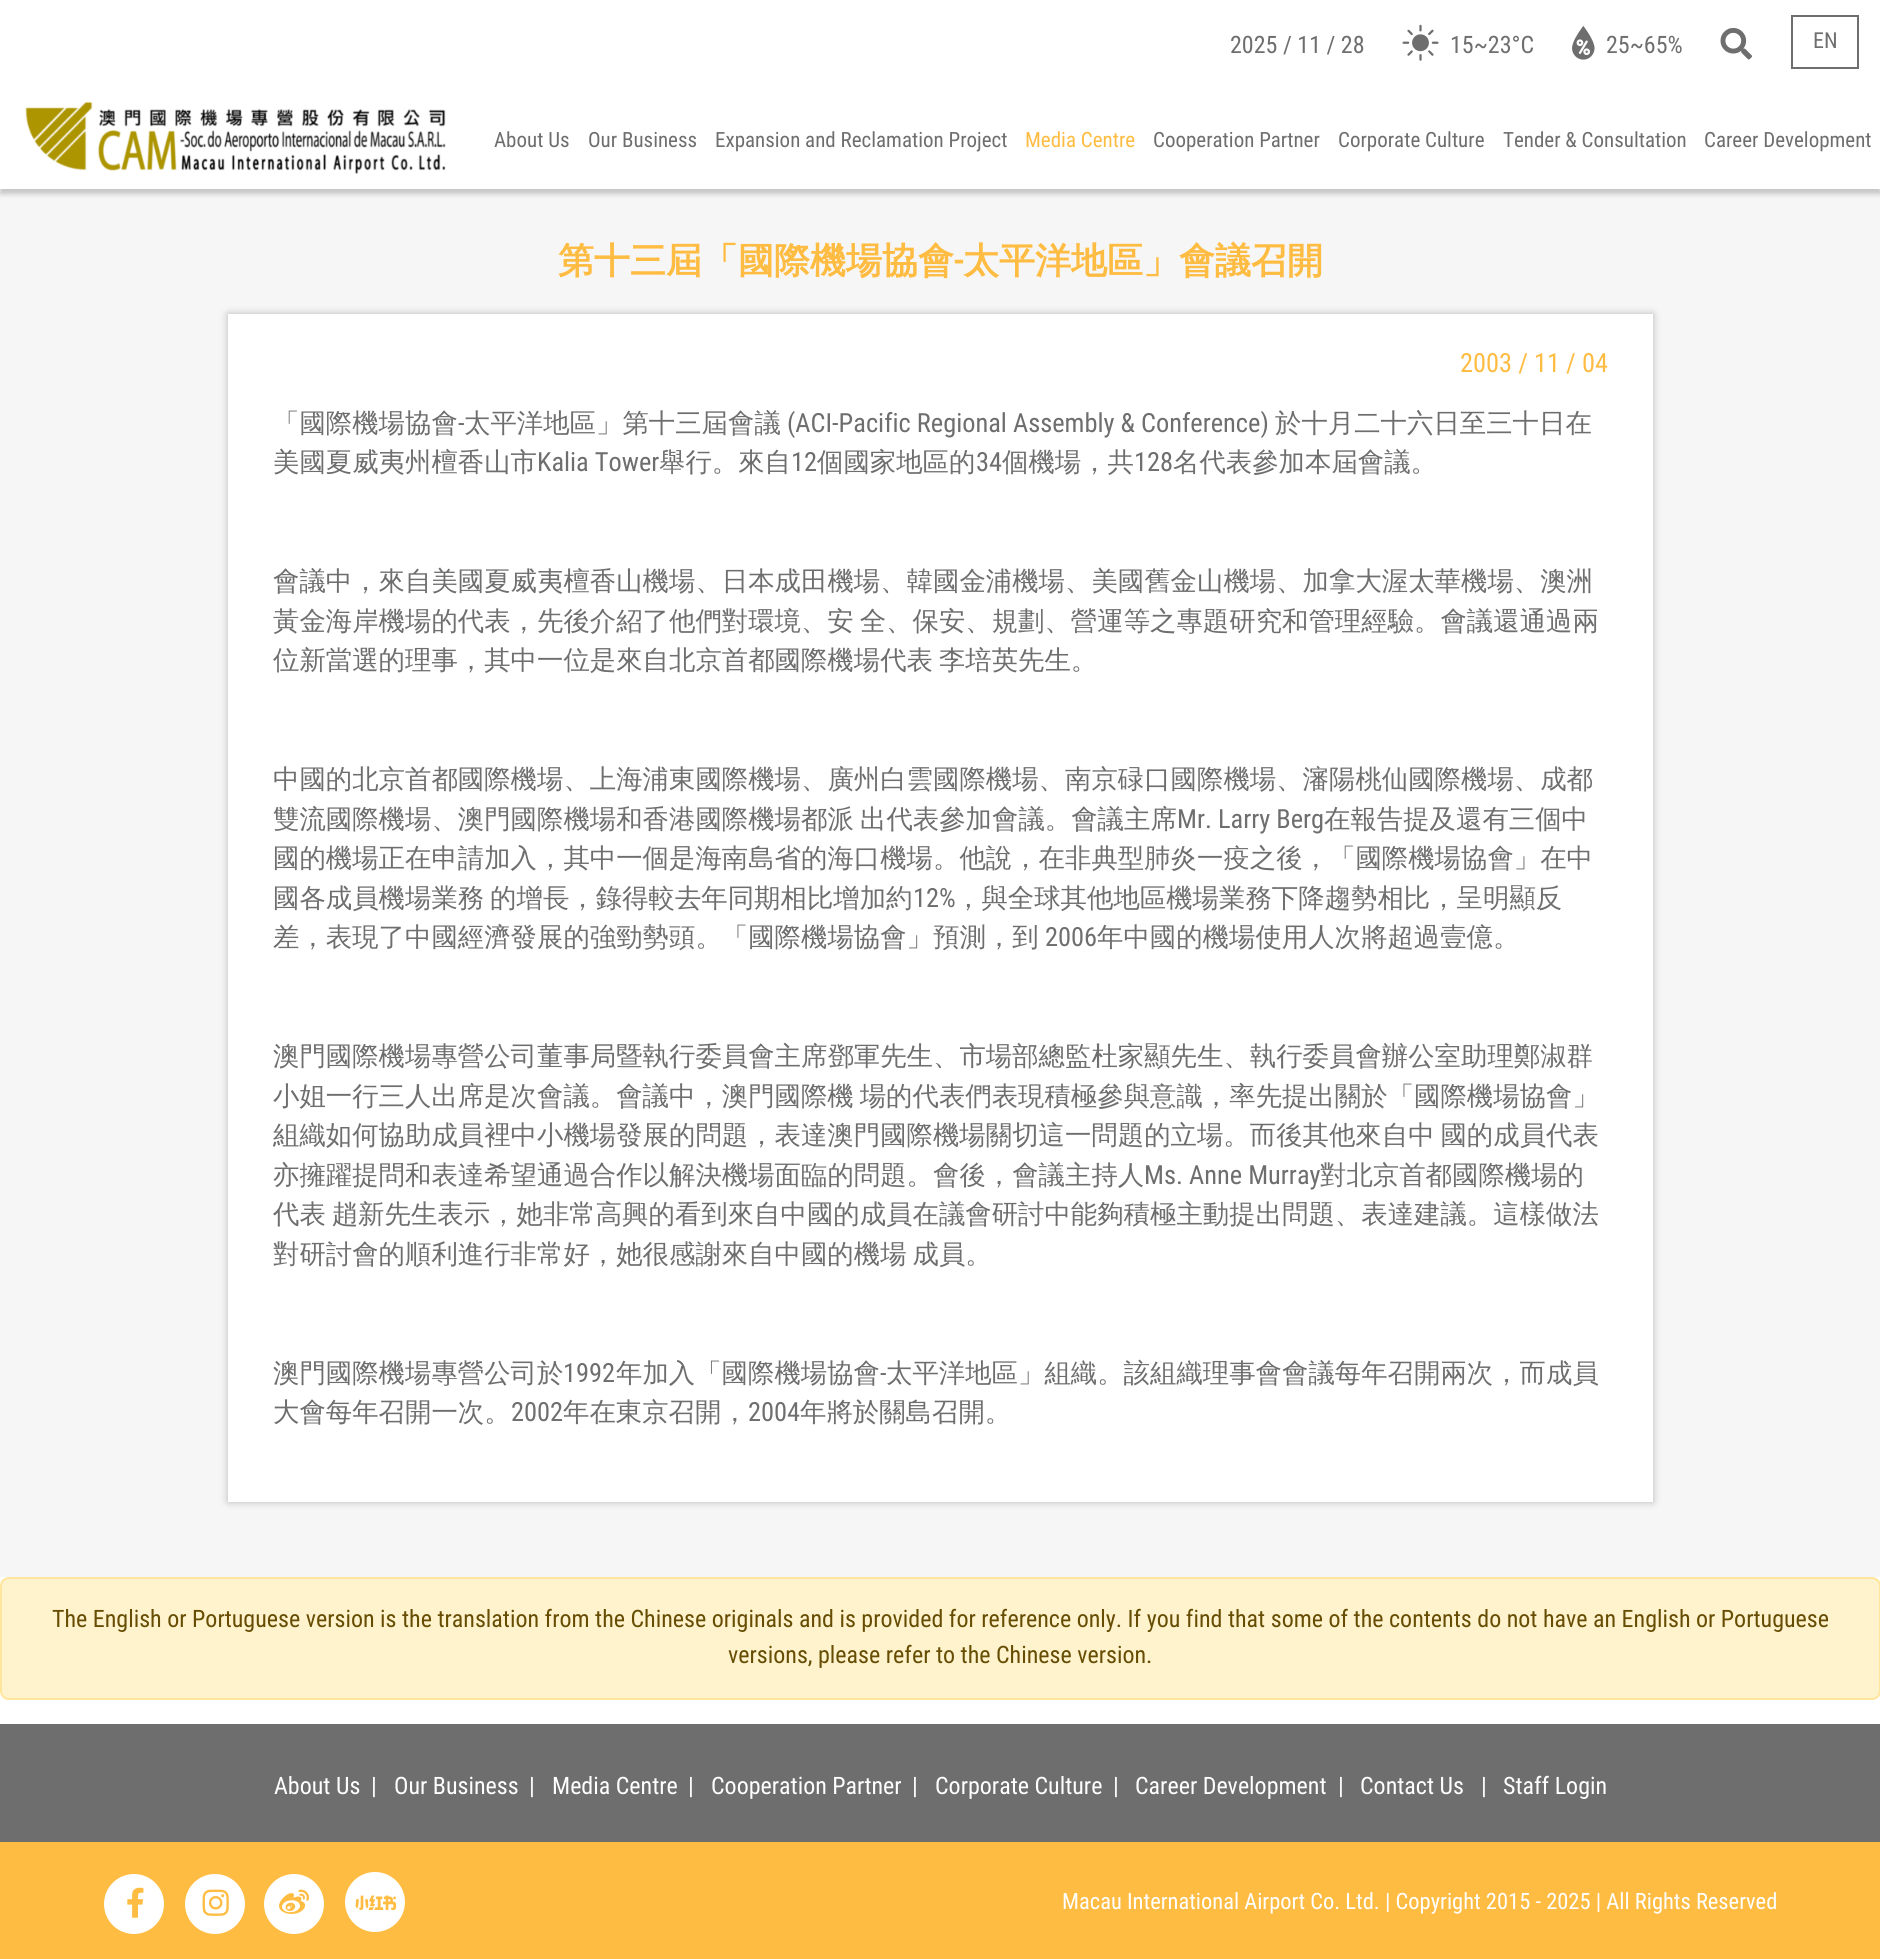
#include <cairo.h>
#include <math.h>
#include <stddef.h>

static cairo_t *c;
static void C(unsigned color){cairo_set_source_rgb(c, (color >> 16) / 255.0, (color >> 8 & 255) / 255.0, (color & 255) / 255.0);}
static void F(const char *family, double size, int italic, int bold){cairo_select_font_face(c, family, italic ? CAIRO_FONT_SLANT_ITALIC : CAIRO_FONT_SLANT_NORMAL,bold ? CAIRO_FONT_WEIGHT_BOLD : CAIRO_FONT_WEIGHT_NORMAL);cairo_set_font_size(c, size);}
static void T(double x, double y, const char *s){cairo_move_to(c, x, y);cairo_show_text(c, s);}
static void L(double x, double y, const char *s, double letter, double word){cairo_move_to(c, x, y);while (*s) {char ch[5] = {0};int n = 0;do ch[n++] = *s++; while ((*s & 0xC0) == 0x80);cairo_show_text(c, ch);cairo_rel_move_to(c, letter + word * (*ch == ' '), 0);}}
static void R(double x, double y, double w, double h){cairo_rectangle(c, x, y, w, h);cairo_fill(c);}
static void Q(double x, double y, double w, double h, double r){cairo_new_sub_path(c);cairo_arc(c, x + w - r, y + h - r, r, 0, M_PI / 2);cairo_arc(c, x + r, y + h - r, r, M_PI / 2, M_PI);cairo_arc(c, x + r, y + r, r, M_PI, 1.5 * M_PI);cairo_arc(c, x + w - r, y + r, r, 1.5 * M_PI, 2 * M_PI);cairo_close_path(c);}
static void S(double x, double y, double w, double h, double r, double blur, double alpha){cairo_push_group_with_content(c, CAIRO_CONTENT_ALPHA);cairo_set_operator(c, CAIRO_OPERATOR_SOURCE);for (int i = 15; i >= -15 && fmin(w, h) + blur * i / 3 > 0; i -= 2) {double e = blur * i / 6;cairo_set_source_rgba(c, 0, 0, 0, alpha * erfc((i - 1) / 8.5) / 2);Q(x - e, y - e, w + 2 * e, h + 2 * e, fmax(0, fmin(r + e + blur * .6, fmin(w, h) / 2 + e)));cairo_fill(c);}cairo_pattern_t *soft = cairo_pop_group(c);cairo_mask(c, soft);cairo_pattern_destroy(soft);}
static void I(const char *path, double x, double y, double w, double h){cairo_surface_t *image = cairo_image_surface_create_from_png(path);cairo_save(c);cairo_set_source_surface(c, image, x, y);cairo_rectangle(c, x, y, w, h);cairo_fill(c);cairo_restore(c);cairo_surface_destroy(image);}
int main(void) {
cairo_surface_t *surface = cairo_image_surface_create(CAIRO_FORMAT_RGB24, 1880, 1959);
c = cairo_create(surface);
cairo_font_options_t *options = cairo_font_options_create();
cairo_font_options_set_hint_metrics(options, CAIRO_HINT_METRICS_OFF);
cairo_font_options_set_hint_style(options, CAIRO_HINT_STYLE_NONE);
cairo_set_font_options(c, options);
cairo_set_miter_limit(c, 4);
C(0xffffff);
cairo_paint(c);
C(0xf6f6f6);
R(0,189,1880,1388);
C(0x000000);
S(0,5,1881,189,0,2.5,.2);
C(0xffffff);
R(0,1,1880,188);
F("Roboto Condensed",24,0,0);
C(0x6e6e6e);
T(1230,53,"2025 / 11 / 28");
I("1.png",1402,24,37,37);
T(1450,53,"15~23°C");
I("2.png",1572,26,23,34);
T(1606,53,"25~65%");
I("3.png",1720,27,32,33);
cairo_rectangle(c,1792,16,66,52);
cairo_stroke(c);
F("Roboto Condensed",22,0,0);
T(1813,48,"EN");
I("4.png",25,101,421,73);
F("Roboto Condensed",21,0,0);
T(494,147,"About Us");
T(588,147,"Our Business");
T(715,147,"Expansion and Reclamation Project");
C(0xffbc42);
T(1025,147,"Media Centre");
C(0x6e6e6e);
T(1153,147,"Cooperation Partner");
T(1338,147,"Corporate Culture");
T(1503,147,"Tender & Consultation");
T(1704,147,"Career Development");
F("WenQuanYi Zen Hei",36,0,1);
C(0xffbc42);
T(558,273,"第十三屆「國際機場協會");
F("Roboto Condensed",36,0,1);
T(954,273,"-");
F("WenQuanYi Zen Hei",36,0,1);
T(963,273,"太平洋地區」會議召開");
C(0x000000);
S(228,314,1425,1188,0,4,.25);
C(0xffffff);
R(228,314,1425,1188);
F("Roboto Condensed",26.4,0,0);
C(0xffbc42);
T(1460,372,"2003 / 11 / 04");
F("WenQuanYi Zen Hei Medium",26.4,0,0);
C(0x6e6e6e);
T(273,432,"「國際機場協會");
F("Roboto Condensed",26.4,0,0);
T(458,432,"-");
F("WenQuanYi Zen Hei Medium",26.4,0,0);
T(464,432,"太平洋地區」第十三屆會議");
F("Roboto Condensed",26.4,0,0);
T(787,432,"(ACI-Pacific Regional Assembly & Conference)");
F("WenQuanYi Zen Hei Medium",26.4,0,0);
T(1275,432,"於十月二十六日至三十日在");
T(273,471,"美國夏威夷州檀香山市");
F("Roboto Condensed",26.4,0,0);
T(537,471,"Kalia Tower");
F("WenQuanYi Zen Hei Medium",26.4,0,0);
T(659,471,"舉行。來自");
F("Roboto Condensed",26.4,0,0);
T(791,471,"12");
F("WenQuanYi Zen Hei Medium",26.4,0,0);
T(817,471,"個國家地區的");
F("Roboto Condensed",26.4,0,0);
T(976,471,"34");
F("WenQuanYi Zen Hei Medium",26.4,0,0);
T(1002,471,"個機場，共");
F("Roboto Condensed",26.4,0,0);
T(1134,471,"128");
F("WenQuanYi Zen Hei Medium",26.4,0,0);
T(1173,471,"名代表參加本屆會議。");
T(273,590,"會議中，來自美國夏威夷檀香山機場、日本成田機場、韓國金浦機場、美國舊金山機場、加拿大渥太華機場、澳洲");
L(273,630,"黃金海岸機場的代表，先後介紹了他們對環境、安 全、保安、規劃、營運等之專題研究和管理經驗。會議還通過兩",0,-2);
L(273,669,"位新當選的理事，其中一位是來自北京首都國際機場代表 李培英先生。",0,-2);
T(273,788,"中國的北京首都國際機場、上海浦東國際機場、廣州白雲國際機場、南京碌口國際機場、瀋陽桃仙國際機場、成都");
T(273,828,"雙流國際機場、澳門國際機場和香港國際機場都派");
T(860,828,"出代表參加會議。會議主席");
F("Roboto Condensed",26.4,0,0);
T(1177,828,"Mr. Larry Berg");
F("WenQuanYi Zen Hei Medium",26.4,0,0);
T(1324,828,"在報告提及還有三個中");
T(273,867,"國的機場正在申請加入，其中一個是海南島省的海口機場。他說，在非典型肺炎一疫之後，「國際機場協會」在中");
L(273,907,"國各成員機場業務 的增長，錄得較去年同期相比增加約",0,-2);
F("Roboto Condensed",26.4,0,0);
T(913,907,"12%");
F("WenQuanYi Zen Hei Medium",26.4,0,0);
T(955,907,"，與全球其他地區機場業務下降趨勢相比，呈明顯反");
T(273,946,"差，表現了中國經濟發展的強勁勢頭。「國際機場協會」預測，到");
F("Roboto Condensed",26.4,0,0);
T(1045,946,"2006");
F("WenQuanYi Zen Hei Medium",26.4,0,0);
T(1097,946,"年中國的機場使用人次將超過壹億。");
T(273,1065,"澳門國際機場專營公司董事局暨執行委員會主席鄧軍先生、市場部總監杜家顯先生、執行委員會辦公室助理鄭淑群");
L(273,1105,"小姐一行三人出席是次會議。會議中，澳門國際機 場的代表們表現積極參與意識，率先提出關於「國際機場協會」",0,-2);
L(273,1144,"組織如何協助成員裡中小機場發展的問題，表達澳門國際機場關切這一問題的立場。而後其他來自中 國的成員代表",0,-2);
T(273,1184,"亦擁躍提問和表達希望通過合作以解決機場面臨的問題。會後，會議主持人");
F("Roboto Condensed",26.4,0,0);
T(1144,1184,"Ms. Anne Murray");
F("WenQuanYi Zen Hei Medium",26.4,0,0);
T(1320,1184,"對北京首都國際機場的");
L(273,1223,"代表 趙新先生表示，她非常高興的看到來自中國的成員在議會研討中能夠積極主動提出問題、表達建議。這樣做法",0,-2);
L(273,1263,"對研討會的順利進行非常好，她很感謝來自中國的機場 成員。",0,-2);
T(273,1382,"澳門國際機場專營公司於");
F("Roboto Condensed",26.4,0,0);
T(563,1382,"1992");
F("WenQuanYi Zen Hei Medium",26.4,0,0);
T(616,1382,"年加入「國際機場協會");
F("Roboto Condensed",26.4,0,0);
T(880,1382,"-");
F("WenQuanYi Zen Hei Medium",26.4,0,0);
T(886,1382,"太平洋地區」組織。該組織理事會會議每年召開兩次，而成員");
T(273,1421,"大會每年召開一次。");
F("Roboto Condensed",26.4,0,0);
T(511,1421,"2002");
F("WenQuanYi Zen Hei Medium",26.4,0,0);
T(563,1421,"年在東京召開，");
F("Roboto Condensed",26.4,0,0);
T(748,1421,"2004");
F("WenQuanYi Zen Hei Medium",26.4,0,0);
T(800,1421,"年將於關島召開。");
C(0xfff3cd);
Q(1,1578,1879,121,8);
cairo_fill_preserve(c);
C(0xffe69c);
cairo_stroke(c);
F("Roboto Condensed",24,0,0);
C(0x664d03);
T(52,1627,"The English or Portuguese version is the translation from the Chinese originals and is provided for reference only. If you find that some of the contents do not have an English or Portuguese");
T(728,1663,"versions, please refer to the Chinese version.");
C(0x6e6e6e);
R(0,1724,1880,118);
C(0xffffff);
T(274,1794,"About Us");
T(371,1794,"|");
T(394,1794,"Our Business");
T(529,1794,"|");
T(552,1794,"Media Centre");
T(688,1794,"|");
T(711,1794,"Cooperation Partner");
T(912,1794,"|");
T(935,1794,"Corporate Culture");
T(1113,1794,"|");
T(1135,1794,"Career Development");
T(1338,1794,"|");
T(1360,1794,"Contact Us");
T(1481,1794,"|");
T(1503,1794,"Staff Login");
C(0xffbc42);
R(0,1842,1880,117);
C(0xffffff);
cairo_new_path(c);
cairo_arc(c,134,1904,28.5,0,2 * M_PI);
cairo_fill_preserve(c);
cairo_set_line_width(c,3);
cairo_stroke(c);
I("5.png",127,1887,17,31);
cairo_arc(c,215,1904,28.5,0,2 * M_PI);
cairo_fill_preserve(c);
cairo_stroke(c);
I("6.png",202,1889,27,27);
cairo_arc(c,294,1904,28.5,0,2 * M_PI);
cairo_fill_preserve(c);
cairo_stroke(c);
I("7.png",279,1889,30,25);
cairo_arc(c,375,1902,28.5,0,2 * M_PI);
cairo_fill_preserve(c);
cairo_stroke(c);
I("8.png",355,1895,41,15);
F("Roboto Condensed",22.5,0,0);
T(1062,1909,"Macau International Airport Co. Ltd. | Copyright 2015 - 2025 | All Rights Reserved");
cairo_surface_write_to_png(surface, "o.png");
cairo_font_options_destroy(options);
cairo_destroy(c);
cairo_surface_destroy(surface);
return 0;
}
